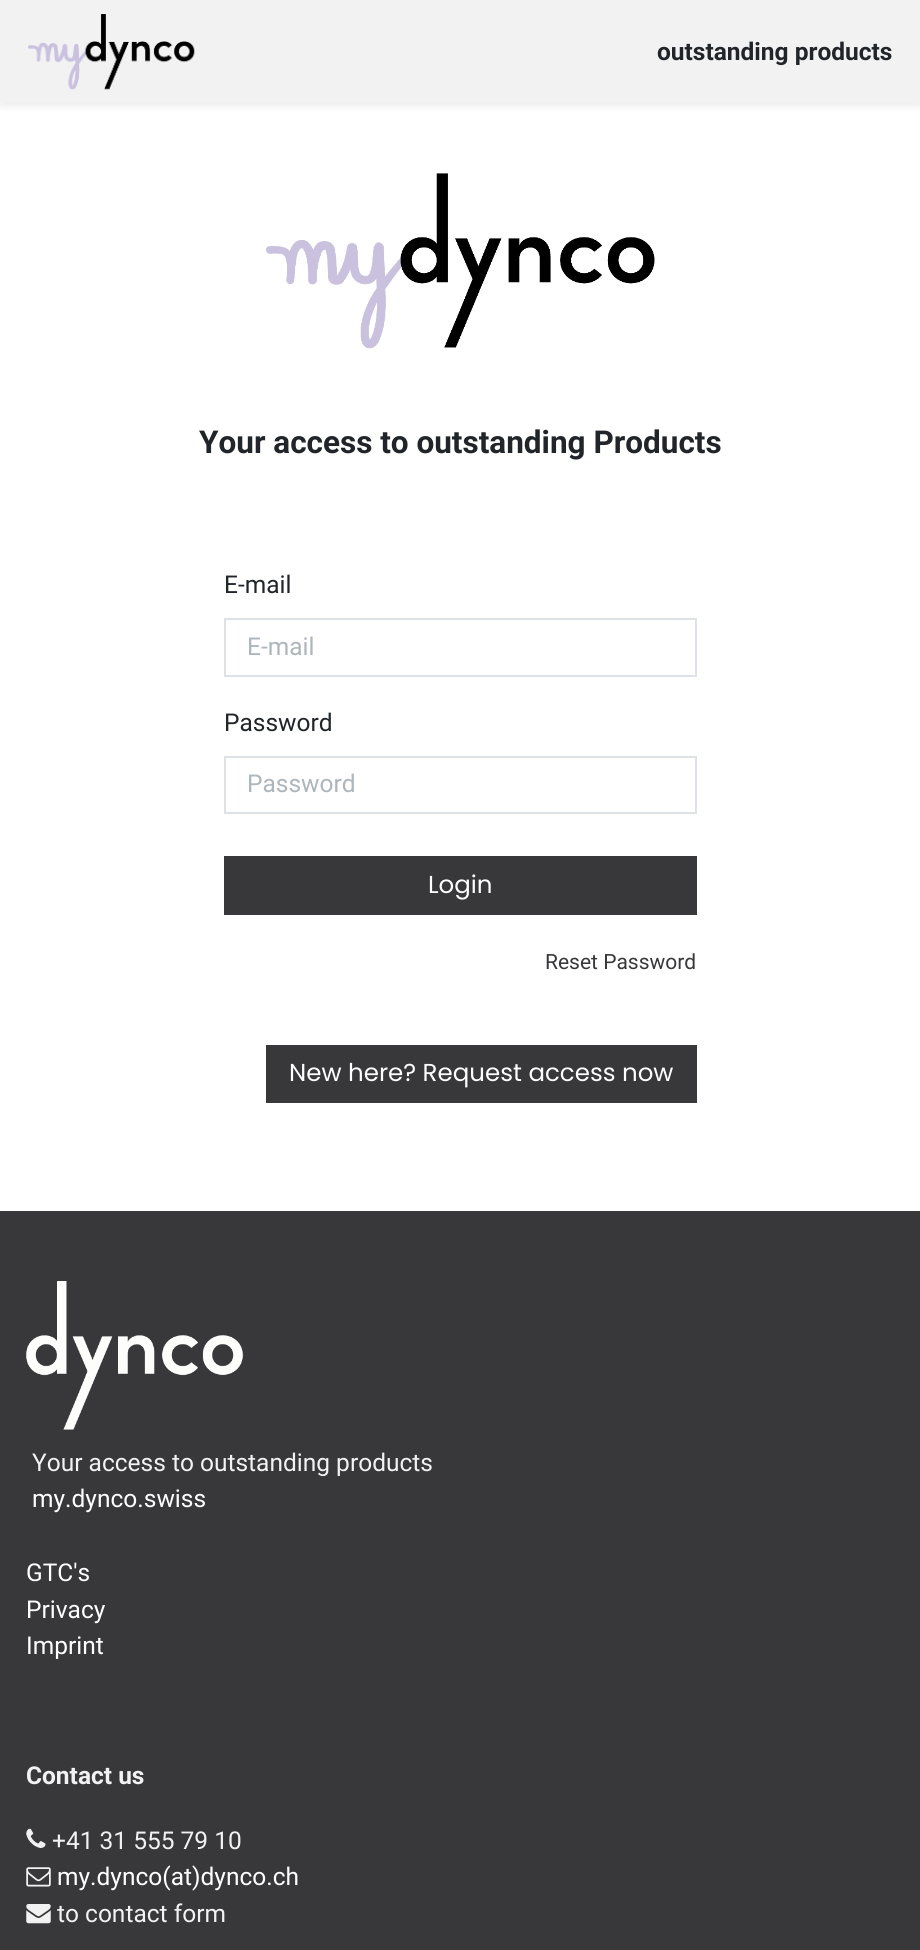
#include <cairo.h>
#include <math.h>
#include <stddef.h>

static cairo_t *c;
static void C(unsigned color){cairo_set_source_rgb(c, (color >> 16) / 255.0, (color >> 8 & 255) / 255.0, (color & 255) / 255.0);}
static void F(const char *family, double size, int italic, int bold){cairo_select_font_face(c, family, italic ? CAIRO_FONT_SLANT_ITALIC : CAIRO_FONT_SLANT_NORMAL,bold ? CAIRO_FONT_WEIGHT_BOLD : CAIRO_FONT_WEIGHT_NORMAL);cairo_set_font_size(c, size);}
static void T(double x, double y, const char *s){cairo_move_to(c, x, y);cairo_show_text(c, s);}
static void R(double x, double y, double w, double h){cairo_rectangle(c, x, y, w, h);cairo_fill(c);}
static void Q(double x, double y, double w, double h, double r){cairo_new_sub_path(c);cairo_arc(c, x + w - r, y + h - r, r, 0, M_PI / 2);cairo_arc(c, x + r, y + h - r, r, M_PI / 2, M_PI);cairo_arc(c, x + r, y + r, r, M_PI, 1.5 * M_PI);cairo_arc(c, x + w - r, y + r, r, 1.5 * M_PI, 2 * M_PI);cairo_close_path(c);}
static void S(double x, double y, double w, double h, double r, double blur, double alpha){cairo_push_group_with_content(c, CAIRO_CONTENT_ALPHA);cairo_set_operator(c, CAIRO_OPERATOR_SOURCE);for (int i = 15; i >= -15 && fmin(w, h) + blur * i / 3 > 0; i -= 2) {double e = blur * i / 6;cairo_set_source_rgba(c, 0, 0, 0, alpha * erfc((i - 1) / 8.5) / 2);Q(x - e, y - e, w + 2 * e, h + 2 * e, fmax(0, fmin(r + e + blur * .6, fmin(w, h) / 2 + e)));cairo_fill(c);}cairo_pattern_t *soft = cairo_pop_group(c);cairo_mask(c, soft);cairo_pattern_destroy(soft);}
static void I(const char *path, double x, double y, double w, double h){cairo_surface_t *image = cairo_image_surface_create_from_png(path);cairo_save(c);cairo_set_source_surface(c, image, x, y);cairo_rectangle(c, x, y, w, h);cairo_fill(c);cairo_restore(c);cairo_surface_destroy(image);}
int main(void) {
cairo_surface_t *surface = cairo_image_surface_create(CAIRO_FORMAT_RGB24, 920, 1950);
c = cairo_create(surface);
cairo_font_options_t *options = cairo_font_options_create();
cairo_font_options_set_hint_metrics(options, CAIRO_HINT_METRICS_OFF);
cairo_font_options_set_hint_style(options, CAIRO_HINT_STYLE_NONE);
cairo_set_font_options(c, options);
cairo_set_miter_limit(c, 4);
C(0xffffff);
cairo_paint(c);
C(0x000000);
S(0,4,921,103,0,3.5,.07);
C(0xf2f2f3);
R(0,0,920,103);
I("1.png",28,14,167,76);
F("Roboto",24.5,0,1);
C(0x212529);
T(657,60,"outstanding products");
I("2.png",266,173,389,176);
F("Roboto",31.5,0,1);
T(199,453,"Your access to outstanding Products");
F("Roboto",24.5,0,0);
T(224,593,"E-mail");
cairo_rectangle(c,225,619,471,57);
C(0xdee2e6);
cairo_stroke(c);
C(0xadb5bd);
T(247,655,"E-mail");
C(0x212529);
T(224,731,"Password");
cairo_rectangle(c,225,757,471,56);
C(0xdee2e6);
cairo_stroke(c);
C(0xadb5bd);
T(247,792,"Password");
C(0x38383b);
R(224,856,473,59);
F("Poppins",24.5,0,0);
C(0xffffff);
T(428,893,"Login");
F("Roboto",21,0,0);
C(0x38383b);
T(545,969,"Reset Password");
R(266,1045,431,58);
F("Poppins",24.5,0,0);
C(0xffffff);
T(289,1081,"New here? Request access now");
C(0x38383b);
R(0,1211,920,739);
I("3.png",26,1281,218,149);
F("Roboto",24.5,0,0);
C(0xf2f2f3);
T(32,1471,"Your access to outstanding products");
C(0xffffff);
T(32,1507,"my.dynco.swiss");
T(26,1581,"GTC's");
T(26,1618,"Privacy");
T(26,1654,"Imprint");
F("Roboto",24.5,0,1);
C(0xf2f2f3);
T(26,1784,"Contact us");
I("4.png",26,1828,20,20);
F("Roboto",24.5,0,0);
T(52,1849,"+41 31 555 79 10");
I("5.png",26,1867,25,20);
C(0xffffff);
T(57,1885,"my.dynco(at)dynco.ch");
I("6.png",26,1904,25,20);
C(0xf2f2f3);
T(57,1922,"to contact form");
cairo_surface_write_to_png(surface, "o.png");
cairo_font_options_destroy(options);
cairo_destroy(c);
cairo_surface_destroy(surface);
return 0;
}
